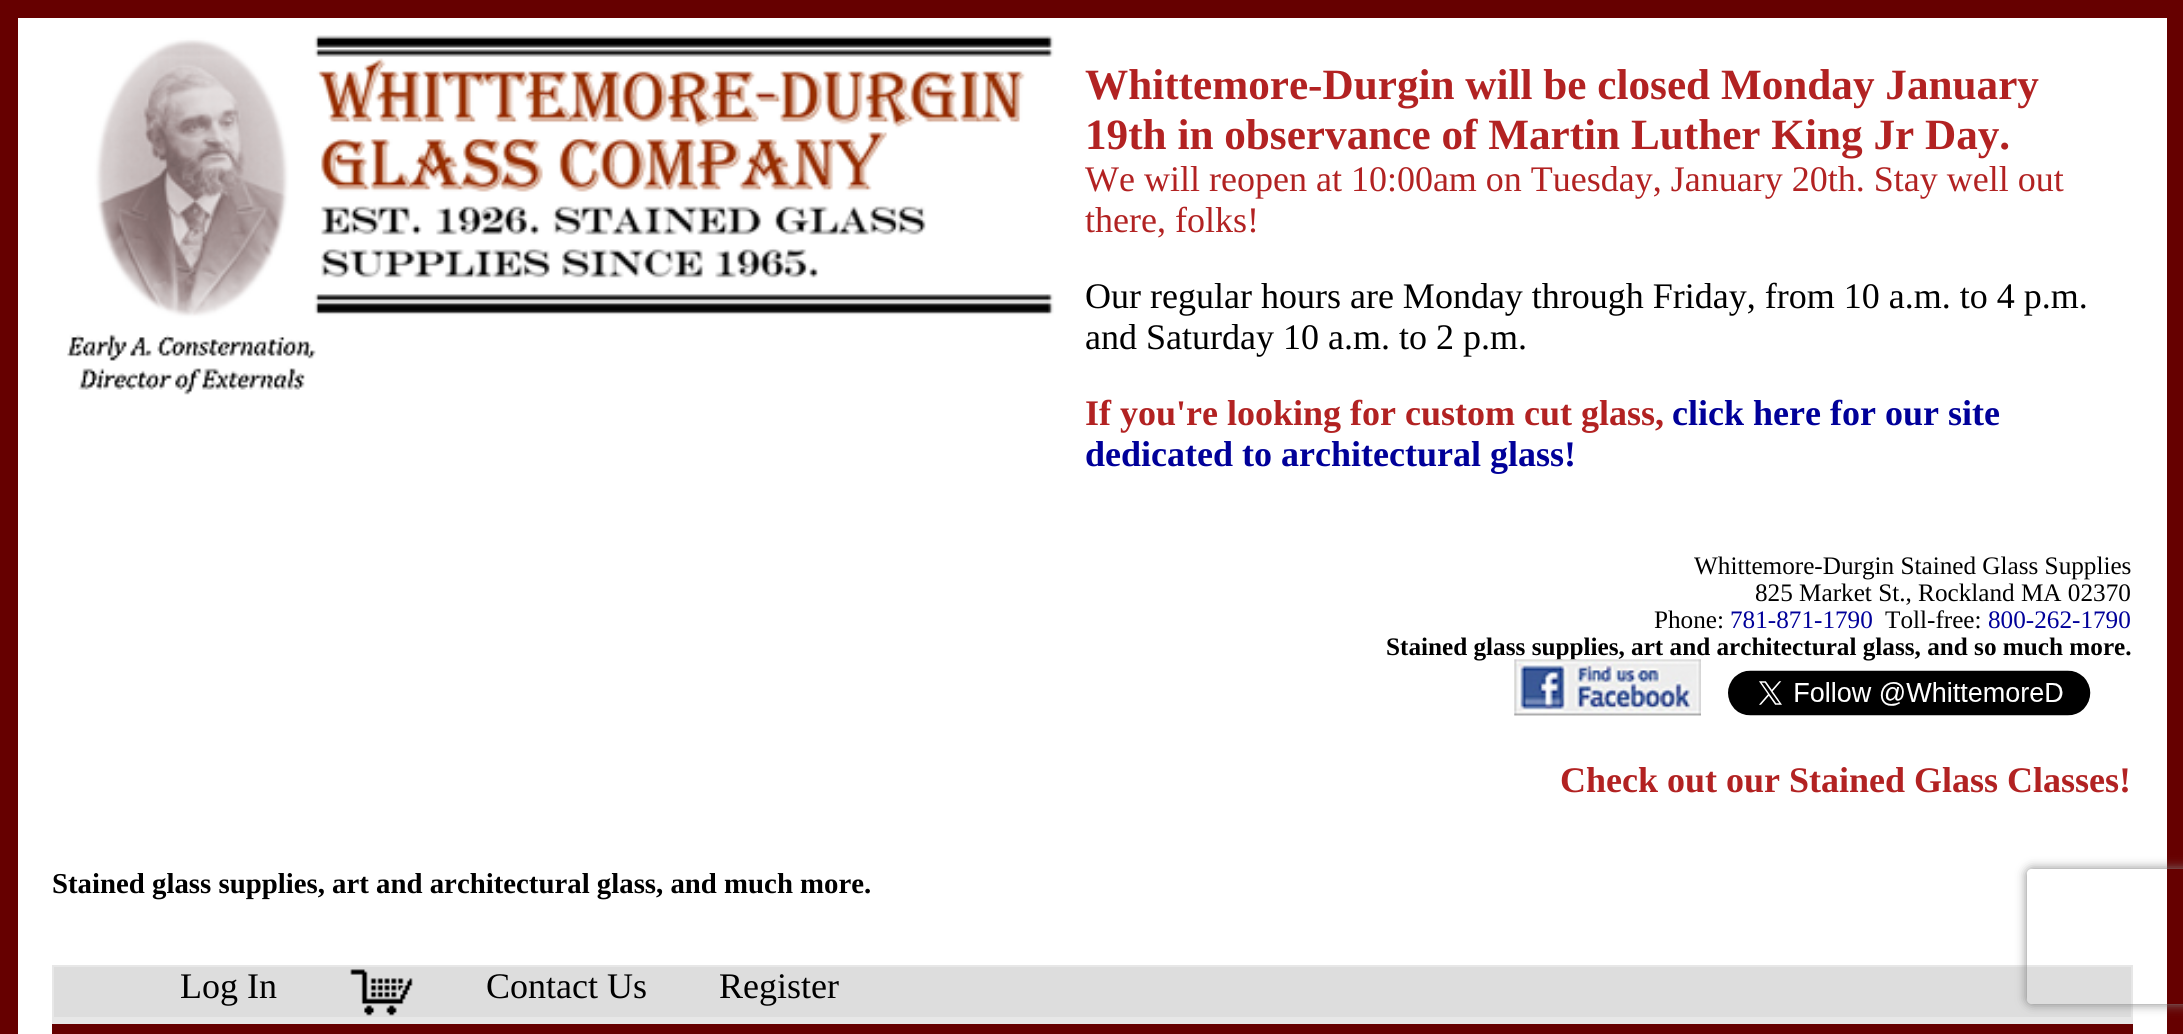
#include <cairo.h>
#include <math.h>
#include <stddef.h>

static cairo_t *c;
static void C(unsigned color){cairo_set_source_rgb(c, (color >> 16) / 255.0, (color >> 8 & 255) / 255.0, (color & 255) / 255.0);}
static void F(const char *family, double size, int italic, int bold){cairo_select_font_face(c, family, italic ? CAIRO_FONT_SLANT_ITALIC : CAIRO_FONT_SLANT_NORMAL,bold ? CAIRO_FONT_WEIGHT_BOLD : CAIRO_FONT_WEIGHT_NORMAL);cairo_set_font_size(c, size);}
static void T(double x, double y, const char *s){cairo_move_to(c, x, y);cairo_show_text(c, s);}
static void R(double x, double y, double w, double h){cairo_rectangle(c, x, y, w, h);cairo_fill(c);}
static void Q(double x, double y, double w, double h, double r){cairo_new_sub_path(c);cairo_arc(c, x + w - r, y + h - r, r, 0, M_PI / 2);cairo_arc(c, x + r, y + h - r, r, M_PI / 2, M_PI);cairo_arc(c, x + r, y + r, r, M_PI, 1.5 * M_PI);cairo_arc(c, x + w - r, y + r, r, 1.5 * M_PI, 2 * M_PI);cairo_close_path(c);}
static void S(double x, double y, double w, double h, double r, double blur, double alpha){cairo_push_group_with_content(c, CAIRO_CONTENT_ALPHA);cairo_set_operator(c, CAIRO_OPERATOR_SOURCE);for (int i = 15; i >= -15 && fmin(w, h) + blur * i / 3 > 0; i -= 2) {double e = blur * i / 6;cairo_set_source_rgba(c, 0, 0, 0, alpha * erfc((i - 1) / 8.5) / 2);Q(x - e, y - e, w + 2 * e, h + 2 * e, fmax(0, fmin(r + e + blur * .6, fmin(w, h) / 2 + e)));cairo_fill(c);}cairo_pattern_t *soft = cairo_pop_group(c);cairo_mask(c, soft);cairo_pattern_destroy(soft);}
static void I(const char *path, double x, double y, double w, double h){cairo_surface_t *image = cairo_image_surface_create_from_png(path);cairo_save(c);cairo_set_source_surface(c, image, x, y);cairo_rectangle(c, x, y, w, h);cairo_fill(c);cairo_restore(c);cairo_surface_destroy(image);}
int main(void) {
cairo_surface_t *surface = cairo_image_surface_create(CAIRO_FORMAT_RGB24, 2183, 1034);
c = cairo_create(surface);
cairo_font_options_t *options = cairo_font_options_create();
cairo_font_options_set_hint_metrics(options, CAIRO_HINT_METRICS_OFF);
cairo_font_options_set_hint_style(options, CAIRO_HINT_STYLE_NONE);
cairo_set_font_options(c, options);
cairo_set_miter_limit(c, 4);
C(0x660000);
cairo_paint(c);
C(0xffffff);
R(18,18,2149,1016);
I("1.png",67,35,987,360);
F("Liberation Serif",43.2,0,1);
C(0xb22222);
T(1085,99,"Whittemore-Durgin will be closed Monday January");
T(1085,149,"19th in observance of Martin Luther King Jr Day.");
F("Liberation Serif",36,0,0);
T(1085,191,"We will reopen at 10:00am on Tuesday, January 20th. Stay well out");
T(1085,232,"there, folks!");
C(0x000000);
T(1085,308,"Our regular hours are Monday through Friday, from 10 a.m. to 4 p.m.");
T(1085,349,"and Saturday 10 a.m. to 2 p.m.");
F("Liberation Serif",36,0,1);
C(0xb22222);
T(1085,425,"If you're looking for custom cut glass,");
C(0x000099);
T(1672,425,"click here for our site");
T(1085,466,"dedicated to architectural glass!");
F("Liberation Serif",25.2,0,0);
C(0x000000);
T(1694,574,"Whittemore-Durgin Stained Glass Supplies");
T(1755,601,"825 Market St., Rockland MA 02370");
T(1654,628,"Phone:");
C(0x000099);
T(1730,628,"781-871-1790");
C(0x000000);
T(1885,628,"Toll-free:");
C(0x000099);
T(1988,628,"800-262-1790");
F("Liberation Serif",25.2,0,1);
C(0x000000);
T(1386,655,"Stained glass supplies, art and architectural glass, and so much more.");
I("2.png",1514,659,187,57);
I("3.png",1728,670,363,46);
F("Liberation Serif",36,0,1);
C(0xb22222);
T(1560,792,"Check out our Stained Glass Classes!");
F("Liberation Serif",28.8,0,1);
C(0x000000);
T(52,893,"Stained glass supplies, art and architectural glass, and much more.");
C(0xdddddd);
cairo_rectangle(c,53,966,2079,52);
cairo_fill_preserve(c);
C(0xe7e7e7);
cairo_stroke(c);
F("Liberation Serif",36,0,0);
C(0x000000);
T(180,998,"Log In");
I("4.png",350,969,63,47);
T(486,998,"Contact Us");
T(719,998,"Register");
C(0xe7e7e7);
R(52,1019,2081,5);
C(0x660000);
R(52,1024,2081,10);
cairo_save(c);
cairo_set_fill_rule(c,CAIRO_FILL_RULE_EVEN_ODD);
cairo_new_path(c);
cairo_move_to(c,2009,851);
cairo_line_to(c,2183,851);
cairo_line_to(c,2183,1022);
cairo_line_to(c,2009,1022);
cairo_close_path(c);
cairo_move_to(c,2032,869);
cairo_line_to(c,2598,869);
cairo_curve_to(c,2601,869,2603,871,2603,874);
cairo_line_to(c,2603,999);
cairo_curve_to(c,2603,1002,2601,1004,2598,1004);
cairo_line_to(c,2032,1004);
cairo_curve_to(c,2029,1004,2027,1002,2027,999);
cairo_line_to(c,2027,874);
cairo_curve_to(c,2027,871,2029,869,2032,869);
cairo_close_path(c);
cairo_clip(c);
C(0x808080);
S(2027,869,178,135,5,5.5,1);
cairo_restore(c);
cairo_surface_write_to_png(surface, "o.png");
cairo_font_options_destroy(options);
cairo_destroy(c);
cairo_surface_destroy(surface);
return 0;
}
